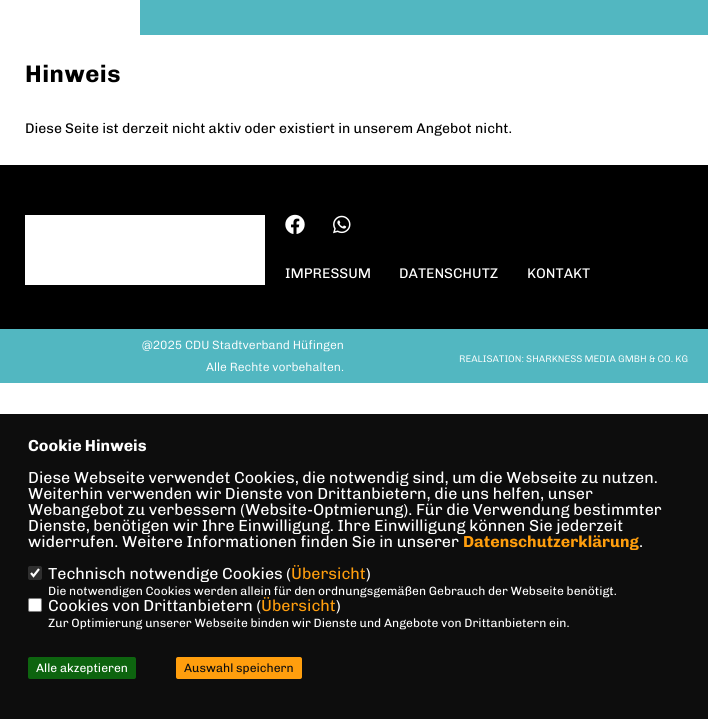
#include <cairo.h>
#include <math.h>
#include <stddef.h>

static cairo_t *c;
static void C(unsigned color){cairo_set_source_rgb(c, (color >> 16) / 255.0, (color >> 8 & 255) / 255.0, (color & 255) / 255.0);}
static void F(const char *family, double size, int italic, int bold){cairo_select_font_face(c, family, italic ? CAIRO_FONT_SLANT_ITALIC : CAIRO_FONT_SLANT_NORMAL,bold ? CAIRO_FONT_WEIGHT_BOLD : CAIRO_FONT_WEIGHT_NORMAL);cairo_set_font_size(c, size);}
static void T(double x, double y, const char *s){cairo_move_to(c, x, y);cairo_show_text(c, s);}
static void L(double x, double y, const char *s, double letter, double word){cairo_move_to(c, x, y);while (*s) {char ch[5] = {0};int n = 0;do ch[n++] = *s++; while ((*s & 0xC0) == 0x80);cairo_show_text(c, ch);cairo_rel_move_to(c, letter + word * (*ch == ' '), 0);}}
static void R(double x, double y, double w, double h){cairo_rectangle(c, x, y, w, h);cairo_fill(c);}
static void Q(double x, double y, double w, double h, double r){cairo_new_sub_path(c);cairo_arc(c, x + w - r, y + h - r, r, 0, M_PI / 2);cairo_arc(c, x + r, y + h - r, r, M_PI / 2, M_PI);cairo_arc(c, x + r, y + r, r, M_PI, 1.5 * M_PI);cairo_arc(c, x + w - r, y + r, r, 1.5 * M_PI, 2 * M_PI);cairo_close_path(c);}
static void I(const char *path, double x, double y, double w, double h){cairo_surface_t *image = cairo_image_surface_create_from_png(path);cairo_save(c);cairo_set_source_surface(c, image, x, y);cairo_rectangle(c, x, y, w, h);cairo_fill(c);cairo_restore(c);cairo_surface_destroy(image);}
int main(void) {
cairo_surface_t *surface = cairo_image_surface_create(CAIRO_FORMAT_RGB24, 708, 719);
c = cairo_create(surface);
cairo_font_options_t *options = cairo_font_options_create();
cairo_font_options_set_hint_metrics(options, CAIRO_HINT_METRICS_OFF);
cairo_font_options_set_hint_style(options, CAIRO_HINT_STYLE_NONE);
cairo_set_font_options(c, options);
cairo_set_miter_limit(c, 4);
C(0xffffff);
cairo_paint(c);
C(0x52b7c1);
R(140,0,568,35);
F("Chivo",24,0,1);
C(0x000000);
L(25,82,"Hinweis",.5,0);
F("Chivo",14,0,0);
T(25,133,"Diese Seite ist derzeit nicht aktiv oder existiert in unserem Angebot nicht.");
R(0,165,708,164);
C(0xffffff);
R(25,215,240,70);
I("1.png",285,214,20,20);
I("2.png",333,215,18,19);
T(285,278,"IMPRESSUM");
T(399,278,"DATENSCHUTZ");
T(527,278,"KONTAKT");
C(0x52b7c1);
R(0,329,708,54);
F("Chivo Light",12,0,0);
C(0xffffff);
T(142,349,"@2025 CDU Stadtverband Hüfingen");
T(206,371,"Alle Rechte vorbehalten.");
F("Chivo Light",9.6,0,0);
T(459,362,"REALISATION: SHARKNESS MEDIA GMBH & CO. KG");
C(0x0d0d0d);
R(0,414,708,305);
F("Chivo",16,0,1);
C(0xffffff);
T(28,451,"Cookie Hinweis");
F("Chivo",16,0,0);
T(28,483,"Diese Webseite verwendet Cookies, die notwendig sind, um die Webseite zu nutzen.");
T(28,499,"Weiterhin verwenden wir Dienste von Drittanbietern, die uns helfen, unser");
T(28,515,"Webangebot zu verbessern (Website-Optmierung). Für die Verwendung bestimmter");
T(28,531,"Dienste, benötigen wir Ihre Einwilligung. Ihre Einwilligung können Sie jederzeit");
T(28,547,"widerrufen. Weitere Informationen finden Sie in unserer");
F("Chivo",16,0,1);
C(0xff9e0d);
T(463,547,"Datenschutzerklärung");
F("Chivo",16,0,0);
C(0xffffff);
T(639,547,".");
C(0x2f2f2f);
Q(28,566,14,14,2);
cairo_fill(c);
cairo_new_path(c);
cairo_move_to(c,31,573);
cairo_line_to(c,33.5,576);
cairo_line_to(c,39,569);
C(0xffffff);
cairo_set_line_width(c,2.2);
cairo_stroke(c);
T(48,579,"Technisch notwendige Cookies (");
C(0xff9e0d);
T(291,579,"Übersicht");
C(0xffffff);
T(366,579,")");
F("Chivo",12,0,0);
T(48,595,"Die notwendigen Cookies werden allein für den ordnungsgemäßen Gebrauch der Webseite benötigt.");
Q(28.5,598.5,13,13,1.5);
cairo_fill_preserve(c);
C(0x7d7d7d);
cairo_set_line_width(c,1);
cairo_stroke(c);
F("Chivo",16,0,0);
C(0xffffff);
T(48,611,"Cookies von Drittanbietern (");
C(0xff9e0d);
T(261,611,"Übersicht");
C(0xffffff);
T(336,611,")");
F("Chivo",12,0,0);
T(48,627,"Zur Optimierung unserer Webseite binden wir Dienste und Angebote von Drittanbietern ein.");
C(0x0d640f);
Q(28,657,108,22,2);
cairo_fill(c);
C(0xffffff);
T(36,672,"Alle akzeptieren");
C(0xff9e0d);
Q(176,657,126,22,2);
cairo_fill(c);
C(0x0d0d0d);
T(184,672,"Auswahl speichern");
cairo_surface_write_to_png(surface, "o.png");
cairo_font_options_destroy(options);
cairo_destroy(c);
cairo_surface_destroy(surface);
return 0;
}
